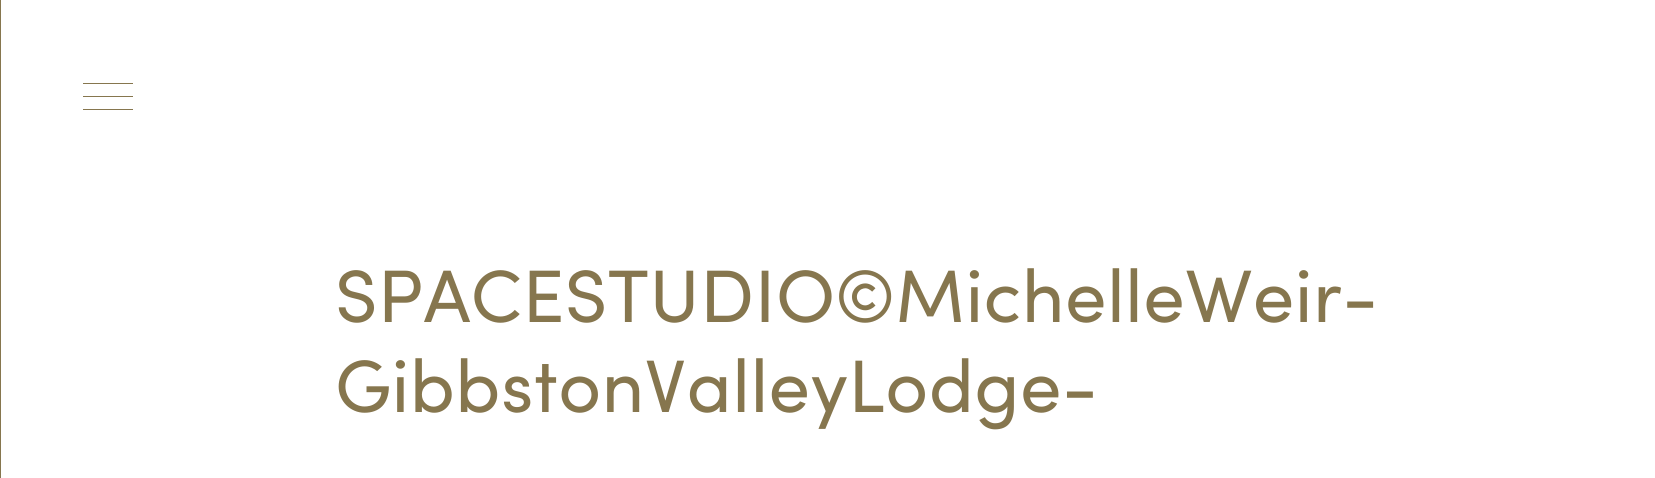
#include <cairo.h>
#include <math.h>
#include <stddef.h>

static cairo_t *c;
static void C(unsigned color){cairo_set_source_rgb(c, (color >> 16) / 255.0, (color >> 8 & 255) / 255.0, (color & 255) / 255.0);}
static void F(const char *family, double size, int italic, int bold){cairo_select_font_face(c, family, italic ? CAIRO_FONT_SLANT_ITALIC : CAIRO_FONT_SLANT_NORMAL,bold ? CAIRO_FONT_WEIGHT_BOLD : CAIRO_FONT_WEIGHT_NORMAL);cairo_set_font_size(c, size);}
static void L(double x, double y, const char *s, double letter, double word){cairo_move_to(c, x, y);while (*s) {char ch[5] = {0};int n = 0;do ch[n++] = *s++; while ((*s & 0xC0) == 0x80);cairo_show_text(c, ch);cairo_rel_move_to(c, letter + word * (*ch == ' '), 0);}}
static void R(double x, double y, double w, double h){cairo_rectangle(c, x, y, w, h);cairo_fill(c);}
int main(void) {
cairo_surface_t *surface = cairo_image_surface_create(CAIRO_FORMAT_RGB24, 1655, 478);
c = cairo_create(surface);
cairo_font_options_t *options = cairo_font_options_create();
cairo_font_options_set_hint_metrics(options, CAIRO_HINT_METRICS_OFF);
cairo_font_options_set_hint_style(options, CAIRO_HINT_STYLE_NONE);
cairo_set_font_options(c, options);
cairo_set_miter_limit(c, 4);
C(0xffffff);
cairo_paint(c);
C(0x86764e);
R(0,0,1,478);
R(83,83,50,1);
R(83,96,50,1);
R(83,109,50,1);
F("sofia",74.5,0,0);
L(335,322,"SPACESTUDIO©MichelleWeir-",.4,0);
L(335,412,"GibbstonValleyLodge-",.4,0);
cairo_surface_write_to_png(surface, "o.png");
cairo_font_options_destroy(options);
cairo_destroy(c);
cairo_surface_destroy(surface);
return 0;
}
